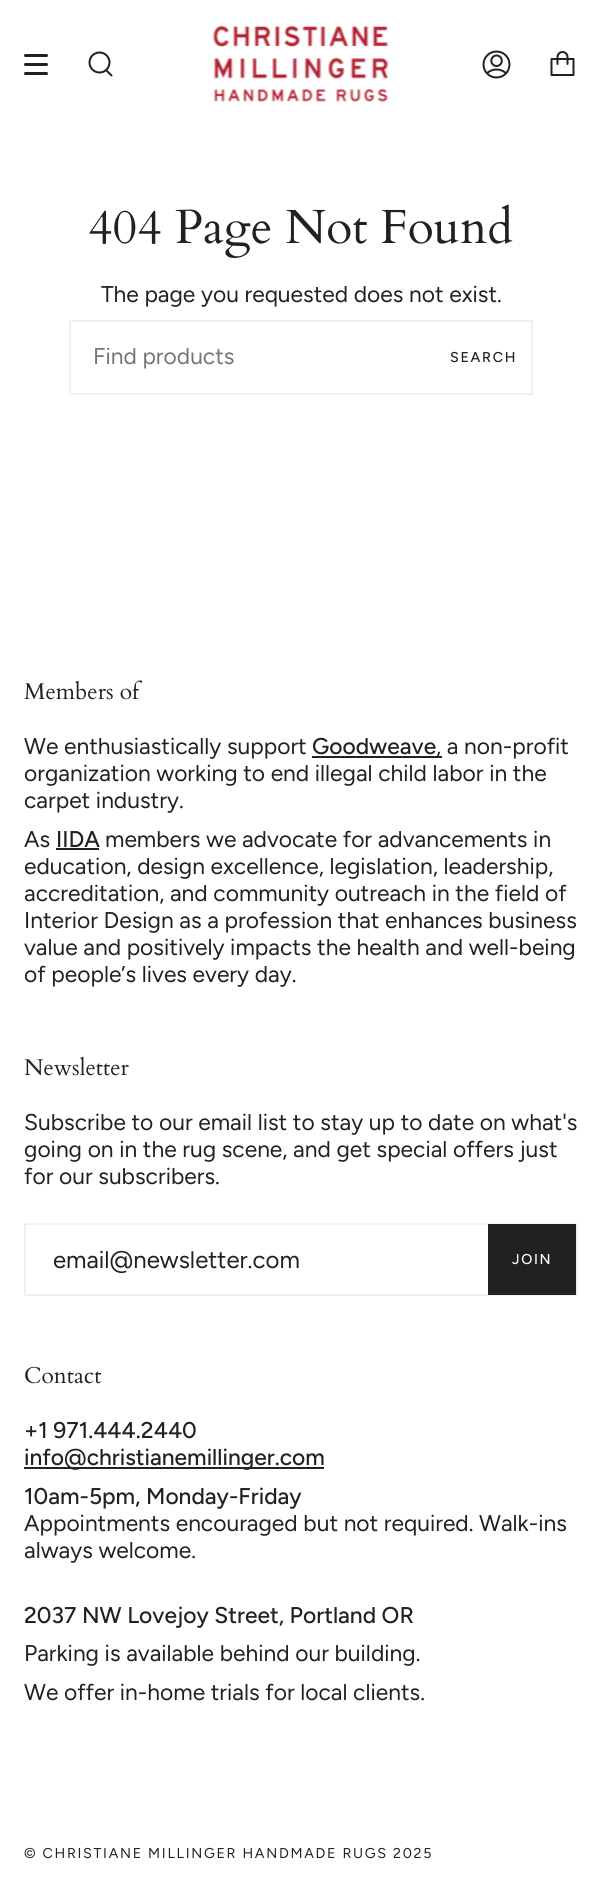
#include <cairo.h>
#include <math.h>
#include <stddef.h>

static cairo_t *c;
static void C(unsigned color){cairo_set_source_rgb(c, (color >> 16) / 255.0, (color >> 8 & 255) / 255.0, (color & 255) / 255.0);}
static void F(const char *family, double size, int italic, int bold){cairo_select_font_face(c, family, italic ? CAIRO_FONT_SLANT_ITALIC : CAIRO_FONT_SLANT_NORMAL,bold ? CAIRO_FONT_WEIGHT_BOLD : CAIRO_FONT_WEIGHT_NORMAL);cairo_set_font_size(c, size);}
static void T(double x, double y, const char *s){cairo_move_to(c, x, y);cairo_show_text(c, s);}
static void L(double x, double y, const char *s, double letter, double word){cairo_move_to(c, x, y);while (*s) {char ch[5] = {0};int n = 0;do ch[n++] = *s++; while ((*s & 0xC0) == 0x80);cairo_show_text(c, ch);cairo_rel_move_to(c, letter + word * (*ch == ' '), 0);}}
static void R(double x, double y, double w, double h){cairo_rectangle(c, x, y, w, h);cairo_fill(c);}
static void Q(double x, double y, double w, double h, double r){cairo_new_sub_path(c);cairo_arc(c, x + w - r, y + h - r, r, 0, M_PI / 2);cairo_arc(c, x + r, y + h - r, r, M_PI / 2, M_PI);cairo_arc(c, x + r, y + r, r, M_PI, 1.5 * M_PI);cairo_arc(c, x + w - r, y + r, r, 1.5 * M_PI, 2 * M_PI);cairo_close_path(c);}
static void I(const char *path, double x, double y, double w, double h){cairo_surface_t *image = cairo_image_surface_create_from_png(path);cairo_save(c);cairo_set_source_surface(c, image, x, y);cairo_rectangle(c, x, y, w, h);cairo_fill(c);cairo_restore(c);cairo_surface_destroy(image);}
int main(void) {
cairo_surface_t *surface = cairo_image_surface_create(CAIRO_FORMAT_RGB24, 601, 1902);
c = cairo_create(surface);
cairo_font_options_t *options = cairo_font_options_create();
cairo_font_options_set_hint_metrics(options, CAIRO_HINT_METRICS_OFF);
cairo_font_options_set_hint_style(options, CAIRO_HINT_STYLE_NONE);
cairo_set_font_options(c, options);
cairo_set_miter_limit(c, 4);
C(0xffffff);
cairo_paint(c);
C(0x212121);
Q(24,54,24,3,1.5);
cairo_fill(c);
Q(24,63,24,3,1.5);
cairo_fill(c);
Q(24,72,24,3,1.5);
cairo_fill(c);
I("1.png",88,51,25,26);
I("2.png",213,25,176,77);
I("3.png",482,50,29,29);
I("4.png",550,51,25,25);
F("Cardo",48,0,0);
T(88,243,"404 Page Not Found");
F("Figtree",22.8,0,0);
T(101,302,"The page you requested does not exist.");
cairo_rectangle(c,70,321,462,73);
C(0xf0f0f0);
cairo_stroke(c);
C(0x757575);
T(93,364,"Find products");
F("Figtree Medium",14.25,0,0);
C(0x212121);
L(450,362,"SEARCH",1.7,0);
F("Cardo",22.8,0,0);
T(24,699,"Members of");
F("Figtree",22.8,0,0);
T(24,754,"We enthusiastically support");
F("Figtree Medium",22.8,0,0);
T(312,754,"Goodweave");
R(312,756,130,2);
F("Figtree",22.8,0,0);
T(436,754,", a non-profit");
T(24,781,"organization working to end illegal child labor in the");
T(24,808,"carpet industry.");
T(24,847,"As");
F("Figtree Medium",22.8,0,0);
T(56,847,"IIDA");
R(56,848,43,2);
F("Figtree",22.8,0,0);
T(105,847,"members we advocate for advancements in");
T(24,874,"education, design excellence, legislation, leadership,");
T(24,901,"accreditation, and community outreach in the field of");
T(24,928,"Interior Design as a profession that enhances business");
T(24,955,"value and positively impacts the health and well-being");
T(24,982,"of people’s lives every day.");
F("Cardo",22.8,0,0);
T(24,1075,"Newsletter");
F("Figtree",22.8,0,0);
T(24,1130,"Subscribe to our email list to stay up to date on what's");
T(24,1157,"going on in the rug scene, and get special offers just");
T(24,1184,"for our subscribers.");
cairo_rectangle(c,25,1224,552,71);
C(0xf0f0f0);
cairo_stroke(c);
F("Figtree",24,0,0);
C(0x212121);
T(53,1268,"email@newsletter.com");
R(488,1224,88,71);
F("Figtree Medium",14.25,0,0);
C(0xffffff);
L(512,1264,"JOIN",1.7,0);
F("Cardo",22.8,0,0);
C(0x212121);
T(24,1383,"Contact");
F("Figtree Medium",22.8,0,0);
T(24,1438,"+1 971.444.2440");
R(24,1467,300,2);
T(24,1465,"info@christianemillinger.com");
T(24,1504,"10am-5pm, Monday-Friday");
F("Figtree",22.8,0,0);
T(24,1531,"Appointments encouraged but not required. Walk-ins");
T(24,1558,"always welcome.");
F("Figtree Medium",22.8,0,0);
T(24,1623,"2037 NW Lovejoy Street, Portland OR");
F("Figtree",22.8,0,0);
T(24,1661,"Parking is available behind our building.");
T(24,1700,"We offer in-home trials for local clients.");
F("Figtree",14.25,0,0);
L(24,1858,"© CHRISTIANE MILLINGER HANDMADE RUGS 2025",1.7,0);
cairo_surface_write_to_png(surface, "o.png");
cairo_font_options_destroy(options);
cairo_destroy(c);
cairo_surface_destroy(surface);
return 0;
}
